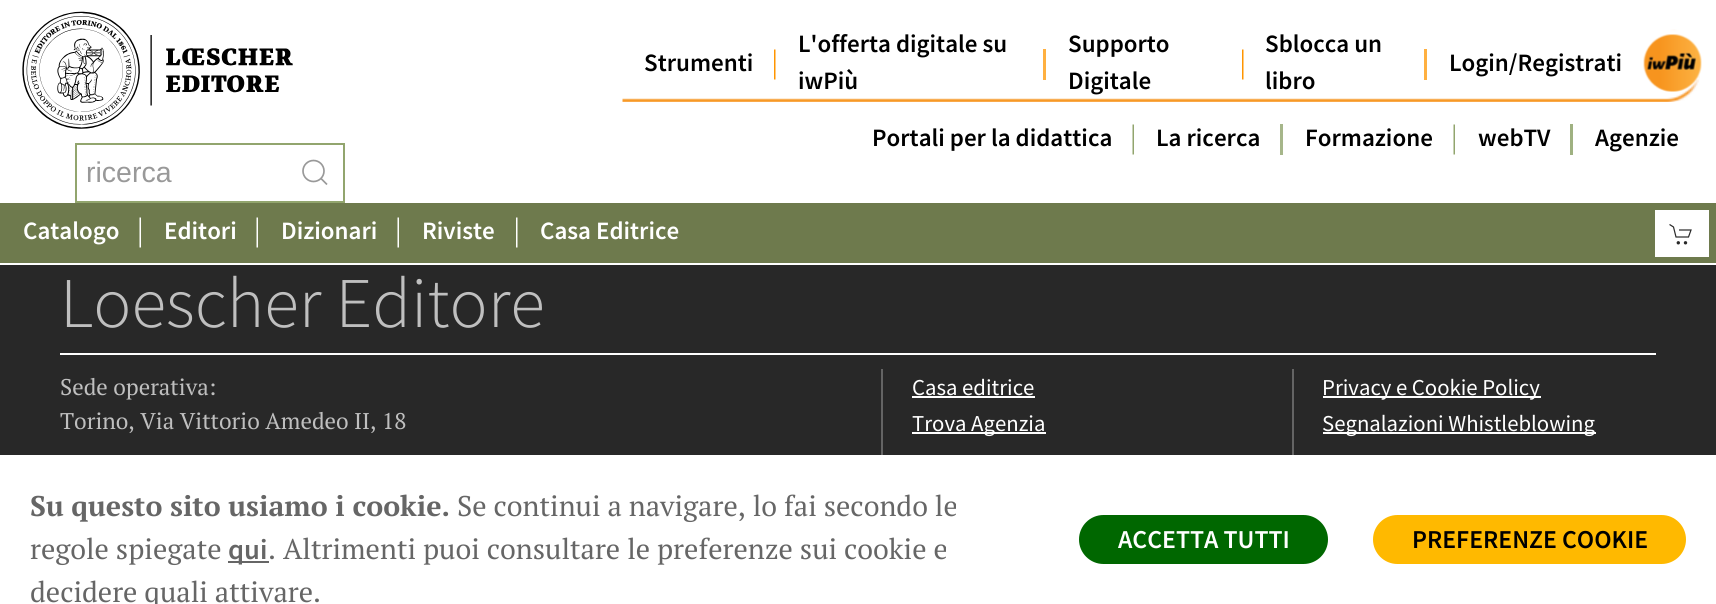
#include <cairo.h>
#include <math.h>
#include <stddef.h>

static cairo_t *c;
static void C(unsigned color){cairo_set_source_rgb(c, (color >> 16) / 255.0, (color >> 8 & 255) / 255.0, (color & 255) / 255.0);}
static void F(const char *family, double size, int italic, int bold){cairo_select_font_face(c, family, italic ? CAIRO_FONT_SLANT_ITALIC : CAIRO_FONT_SLANT_NORMAL,bold ? CAIRO_FONT_WEIGHT_BOLD : CAIRO_FONT_WEIGHT_NORMAL);cairo_set_font_size(c, size);}
static void T(double x, double y, const char *s){cairo_move_to(c, x, y);cairo_show_text(c, s);}
static void R(double x, double y, double w, double h){cairo_rectangle(c, x, y, w, h);cairo_fill(c);}
static void Q(double x, double y, double w, double h, double r){cairo_new_sub_path(c);cairo_arc(c, x + w - r, y + h - r, r, 0, M_PI / 2);cairo_arc(c, x + r, y + h - r, r, M_PI / 2, M_PI);cairo_arc(c, x + r, y + r, r, M_PI, 1.5 * M_PI);cairo_arc(c, x + w - r, y + r, r, 1.5 * M_PI, 2 * M_PI);cairo_close_path(c);}
static void I(const char *path, double x, double y, double w, double h){cairo_surface_t *image = cairo_image_surface_create_from_png(path);cairo_save(c);cairo_set_source_surface(c, image, x, y);cairo_rectangle(c, x, y, w, h);cairo_fill(c);cairo_restore(c);cairo_surface_destroy(image);}
int main(void) {
cairo_surface_t *surface = cairo_image_surface_create(CAIRO_FORMAT_RGB24, 1716, 604);
c = cairo_create(surface);
cairo_font_options_t *options = cairo_font_options_create();
cairo_font_options_set_hint_metrics(options, CAIRO_HINT_METRICS_OFF);
cairo_font_options_set_hint_style(options, CAIRO_HINT_STYLE_NONE);
cairo_set_font_options(c, options);
cairo_set_miter_limit(c, 4);
C(0x282828);
cairo_paint(c);
C(0xffffff);
R(0,0,1716,203);
I("1.png",622,29,1078,73);
I("2.png",774,49,2,31);
F("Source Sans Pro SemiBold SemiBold",25,0,0);
C(0x000000);
T(644,71,"Strumenti");
C(0xffb040);
R(1043,49,3,31);
C(0x000000);
T(798,52,"L'offerta digitale su");
T(798,89,"iwPiù");
I("2.png",1242,49,2,31);
T(1068,52,"Supporto");
T(1068,89,"Digitale");
C(0xffb040);
R(1424,49,3,31);
C(0x000000);
T(1265,52,"Sblocca un");
T(1265,89,"libro");
T(1449,71,"Login/Registrati");
I("3.png",1643,34,59,58);
I("4.png",1132,124,2,31);
T(872,146,"Portali per la didattica");
C(0xa6b68a);
R(1280,124,3,31);
C(0x000000);
T(1156,146,"La ricerca");
I("4.png",1453,124,2,31);
T(1305,146,"Formazione");
C(0x9fb181);
R(1570,124,3,31);
C(0x000000);
T(1478,146,"webTV");
T(1595,146,"Agenzie");
I("5.png",22,11,271,118);
cairo_rectangle(c,76,144,268,58);
C(0x92a56e);
cairo_stroke(c);
F("Liberation Sans",28.5,0,0);
C(0x999999);
T(86,182,"ricerca");
cairo_new_path(c);
cairo_arc(c,313.5,171,10.5,0,2 * M_PI);
cairo_set_line_width(c,1.7);
cairo_stroke(c);
cairo_new_path(c);
cairo_move_to(c,321,178.5);
cairo_line_to(c,327,184.5);
cairo_close_path(c);
cairo_stroke(c);
C(0x6e7a4d);
R(0,203,1716,60);
C(0xffffff);
R(0,263,1716,2);
I("6.png",139,217,2,31);
F("Source Sans Pro SemiBold SemiBold",25,0,0);
T(23,239,"Catalogo");
I("6.png",256,217,2,31);
T(164,239,"Editori");
I("6.png",397,217,2,31);
T(281,239,"Dizionari");
I("7.png",516,217,2,31);
T(422,239,"Riviste");
T(540,239,"Casa Editrice");
R(1655,210,54,47);
cairo_new_path(c);
cairo_move_to(c,1669.5,224.5);
cairo_line_to(c,1673.5,227);
cairo_line_to(c,1676,237);
cairo_line_to(c,1688.5,237);
cairo_line_to(c,1691,230);
cairo_line_to(c,1679,230);
C(0x282828);
cairo_set_line_width(c,1.2);
cairo_stroke(c);
cairo_arc(c,1678.3,242.8,1.7,0,2 * M_PI);
cairo_fill(c);
cairo_arc(c,1685.5,242.8,1.7,0,2 * M_PI);
cairo_fill(c);
F("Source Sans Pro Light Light",71.25,0,0);
C(0xbfbfbf);
T(60,327,"Loescher Editore");
C(0xffffff);
R(60,353,1596,2);
F("PT Serif",22.75,0,0);
C(0xbfbfbf);
T(60,395,"Sede operativa:");
T(60,429,"Torino, Via Vittorio Amedeo II, 18");
C(0x646464);
R(881,369,2,86);
F("Source Sans Pro",22.75,0,0);
C(0xffffff);
T(912,395,"Casa editrice");
R(912,396,123,2);
R(912,432,134,2);
T(912,431,"Trova Agenzia");
C(0x646464);
R(1292,369,2,86);
C(0xffffff);
R(1323,396,218,2);
T(1322,395,"Privacy e Cookie Policy");
R(1323,432,273,2);
T(1322,431,"Segnalazioni Whistleblowing");
R(0,455,1716,149);
F("PT Serif",28.5,0,1);
C(0x666666);
T(30,516,"Su questo sito usiamo i cookie.");
F("PT Serif",28.5,0,0);
T(457,516,"Se continui a navigare, lo fai secondo le");
T(30,559,"regole spiegate");
R(228,561,41,2);
F("Source Sans Pro SemiBold SemiBold",28.5,0,0);
T(228,559,"qui");
F("PT Serif",28.5,0,0);
T(268,559,". Altrimenti puoi consultare le preferenze sui cookie e");
T(30,602,"decidere quali attivare.");
C(0x006700);
Q(1079,515,249,49,24.5);
cairo_fill(c);
F("Source Sans Pro SemiBold SemiBold",25.75,0,0);
C(0xffffff);
T(1118,548,"ACCETTA TUTTI");
C(0xffb900);
Q(1373,515,313,49,24.5);
cairo_fill(c);
C(0x000000);
T(1412,548,"PREFERENZE COOKIE");
cairo_surface_write_to_png(surface, "o.png");
cairo_font_options_destroy(options);
cairo_destroy(c);
cairo_surface_destroy(surface);
return 0;
}
